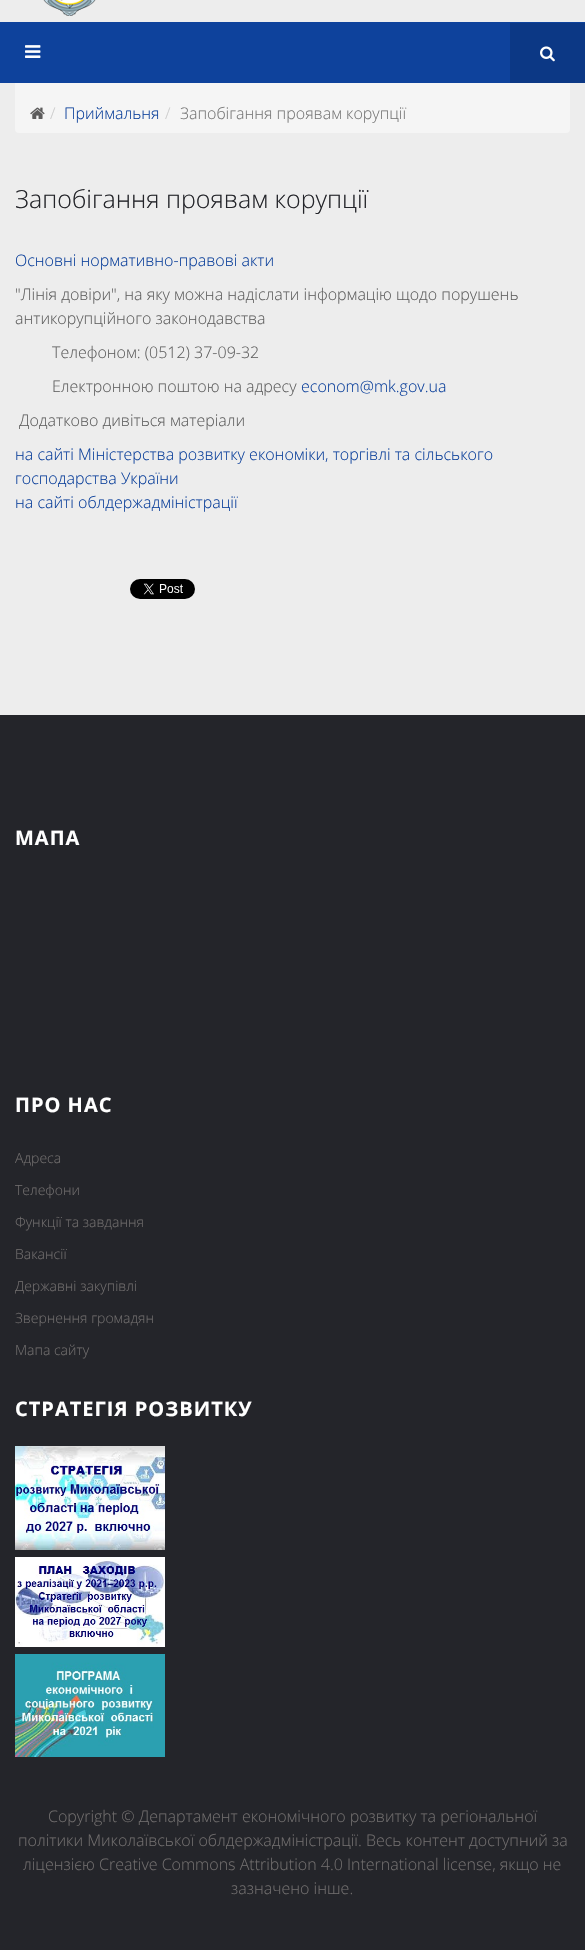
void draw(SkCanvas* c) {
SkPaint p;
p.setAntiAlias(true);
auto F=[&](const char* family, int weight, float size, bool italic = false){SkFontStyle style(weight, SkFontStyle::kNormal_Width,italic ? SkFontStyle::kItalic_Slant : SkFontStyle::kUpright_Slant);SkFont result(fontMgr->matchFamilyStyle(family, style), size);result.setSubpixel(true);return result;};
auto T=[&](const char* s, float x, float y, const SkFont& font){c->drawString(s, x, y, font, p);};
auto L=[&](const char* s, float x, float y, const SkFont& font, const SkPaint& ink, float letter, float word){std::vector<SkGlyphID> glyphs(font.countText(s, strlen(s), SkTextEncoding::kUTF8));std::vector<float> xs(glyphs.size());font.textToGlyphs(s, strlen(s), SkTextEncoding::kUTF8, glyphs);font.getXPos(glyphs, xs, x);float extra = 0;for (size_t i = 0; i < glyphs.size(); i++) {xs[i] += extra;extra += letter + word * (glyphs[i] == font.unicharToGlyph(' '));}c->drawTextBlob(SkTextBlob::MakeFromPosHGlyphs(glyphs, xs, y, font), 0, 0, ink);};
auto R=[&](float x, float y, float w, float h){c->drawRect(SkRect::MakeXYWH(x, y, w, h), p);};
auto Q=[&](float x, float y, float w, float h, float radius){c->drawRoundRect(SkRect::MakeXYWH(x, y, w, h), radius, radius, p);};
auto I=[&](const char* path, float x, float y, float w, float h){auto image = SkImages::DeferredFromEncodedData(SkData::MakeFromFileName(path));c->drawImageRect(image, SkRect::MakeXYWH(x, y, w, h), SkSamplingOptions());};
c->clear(0xffededed);
p.setColor(0xfff5f5f5);
Q(15,31,555,102,4);
p.setColor(0xff0e429c);
R(0,22,585,61);
I("1.png",25,45,16,13);
p.setColor(0xff0c3885);
R(510,23,75,60);
I("2.png",540,46,15,16);
I("3.png",43,0,53,16);
I("4.png",30,107,15,12);
auto f1 = F("Open Sans",300,16);
p.setColor(0xffcccccc);
T("/",50,119,f1);
p.setColor(0xff0e429c);
T("Приймальня",64,119,f1);
p.setColor(0xffcccccc);
T("/",165,119,f1);
p.setColor(0xff777777);
T("Запобігання проявам корупції",180,119,f1);
auto f2 = F("Open Sans",300,25);
p.setColor(0xff24252a);
T("Запобігання проявам корупції",15,208,f2);
p.setColor(0xff0e429c);
T("Основні нормативно-правові акти",15,266,f1);
p.setColor(0xff606060);
T("\"Лінія довіри\", на яку можна надіслати інформацію щодо порушень",15,300,f1);
T("антикорупційного законодавства",15,324,f1);
T("Телефоном: (0512) 37-09-32",52,358,f1);
T("Електронною поштою на адресу",52,392,f1);
p.setColor(0xff0e429c);
T("econom@mk.gov.ua",301,392,f1);
p.setColor(0xff606060);
T("Додатково дивіться матеріали",19,426,f1);
p.setColor(0xff0e429c);
T("на сайті Міністерства розвитку економіки, торгівлі та сільського",15,460,f1);
T("господарства України",15,484,f1);
T("на сайті облдержадміністрації",15,508,f1);
I("5.png",130,579,65,20);
p.setColor(0xff24252a);
R(0,715,585,1235);
auto f3 = F("Open Sans",700,20);
p.setColor(0xffffffff);
L("МАПА",15,845,f3,p,1,0);
L("ПРО НАС",15,1112,f3,p,1,0);
auto f4 = F("Open Sans",300,14);
p.setColor(0xff706d6d);
T("Адреса",15,1163,f4);
T("Телефони",15,1195,f4);
T("Функції та завдання",15,1227,f4);
T("Вакансії",15,1259,f4);
T("Державні закупівлі",15,1291,f4);
T("Звернення громадян",15,1323,f4);
T("Мапа сайту",15,1355,f4);
p.setColor(0xffffffff);
L("СТРАТЕГІЯ РОЗВИТКУ",15,1416,f3,p,1,0);
I("6.png",15,1446,150,104);
I("7.png",15,1557,150,90);
I("8.png",15,1654,150,103);
p.setColor(0xff706d6d);
T("Copyright © Департамент економічного розвитку та регіональної",48,1822,f1);
T("політики Миколаївської облдержадміністрації. Весь контент доступний за",18,1846,f1);
T("ліцензією Creative Commons Attribution 4.0 International license, якщо не",23,1870,f1);
T("зазначено інше.",231,1894,f1);
}
